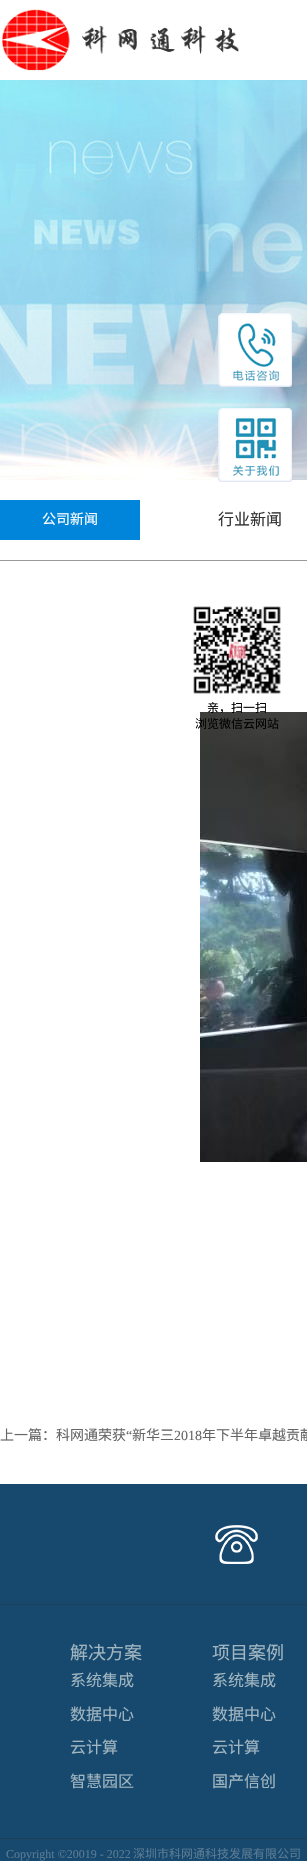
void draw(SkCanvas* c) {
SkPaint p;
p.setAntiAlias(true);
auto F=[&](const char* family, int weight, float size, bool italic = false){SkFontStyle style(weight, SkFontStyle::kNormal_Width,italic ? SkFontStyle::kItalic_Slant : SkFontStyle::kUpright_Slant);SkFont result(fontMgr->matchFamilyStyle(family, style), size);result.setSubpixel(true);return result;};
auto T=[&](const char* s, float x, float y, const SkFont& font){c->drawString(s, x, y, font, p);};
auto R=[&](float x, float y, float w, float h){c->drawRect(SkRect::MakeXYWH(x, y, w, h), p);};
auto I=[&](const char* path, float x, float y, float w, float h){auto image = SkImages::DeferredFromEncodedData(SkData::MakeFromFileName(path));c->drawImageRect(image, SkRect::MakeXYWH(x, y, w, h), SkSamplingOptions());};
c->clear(0xffffffff);
I("1.png",2,9,237,62);
I("4.png",0,80,307,400);
I("2.png",218,313,74,74);
I("3.png",218,408,74,74);
p.setColor(0xff999999);
R(0,560,307,1);
p.setColor(0xff0085db);
R(0,500,140,40);
auto f1 = F("Noto Sans CJK SC",400,14);
p.setColor(0xffffffff);
T("公司新闻",42,524,f1);
auto f2 = F("Noto Sans CJK SC",400,16);
p.setColor(0xff333333);
T("行业新闻",218,525,f2);
I("5.png",200,712,107,450);
I("6.png",193,606,88,88);
auto f3 = F("Noto Sans CJK SC",400,12);
p.setColor(0xff000000);
T("亲，扫一扫",207,712,f3);
T("浏览微信云网站",195,728,f3);
p.setColor(0xff666666);
T("上一篇：科网通荣获",0,1440,f1);
auto f4 = F("Liberation Serif",400,14);
T("“",126,1440,f4);
T("新华三",132,1440,f1);
T("2018",174,1440,f4);
T("年下半年卓越贡献",202,1440,f1);
p.setColor(0xff17496f);
R(0,1484,307,377);
p.setColor(0xff1d3e57);
R(0,1604,307,1);
I("7.png",215,1525,43,39);
R(0,1838,307,1);
auto f5 = F("Noto Sans CJK SC",400,18);
p.setColor(0xffa1b6c0);
T("解决方案",70,1659,f5);
T("系统集成",70,1686,f2);
T("数据中心",70,1720,f2);
T("云计算",70,1753,f2);
T("智慧园区",70,1787,f2);
T("项目案例",212,1659,f5);
T("系统集成",212,1686,f2);
T("数据中心",212,1720,f2);
T("云计算",212,1753,f2);
T("国产信创",212,1787,f2);
auto f6 = F("Liberation Serif",400,12);
p.setColor(0xff5a7a92);
T("Copyright ©20019 - 2022",6,1858,f6);
T("深圳市科网通科技发展有限公司",133,1858,f3);
}
